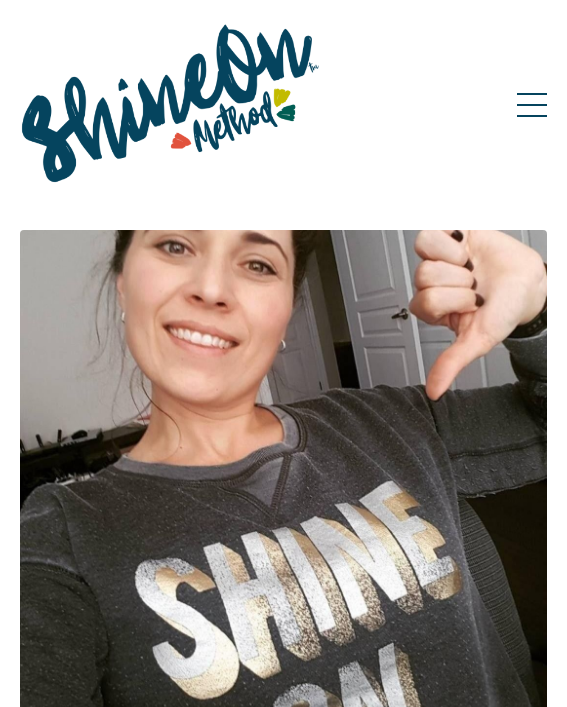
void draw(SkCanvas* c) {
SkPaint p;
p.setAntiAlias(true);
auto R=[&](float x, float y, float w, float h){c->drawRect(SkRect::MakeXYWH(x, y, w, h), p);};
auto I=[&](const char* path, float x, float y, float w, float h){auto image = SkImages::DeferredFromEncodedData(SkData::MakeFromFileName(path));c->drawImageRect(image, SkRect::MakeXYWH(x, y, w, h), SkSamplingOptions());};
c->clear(0xffffffff);
I("1.png",21,24,298,159);
p.setColor(0xff05445e);
R(517,93,30,2);
R(517,104,30,2);
R(517,115,30,2);
I("2.png",20,230,527,477);
}
